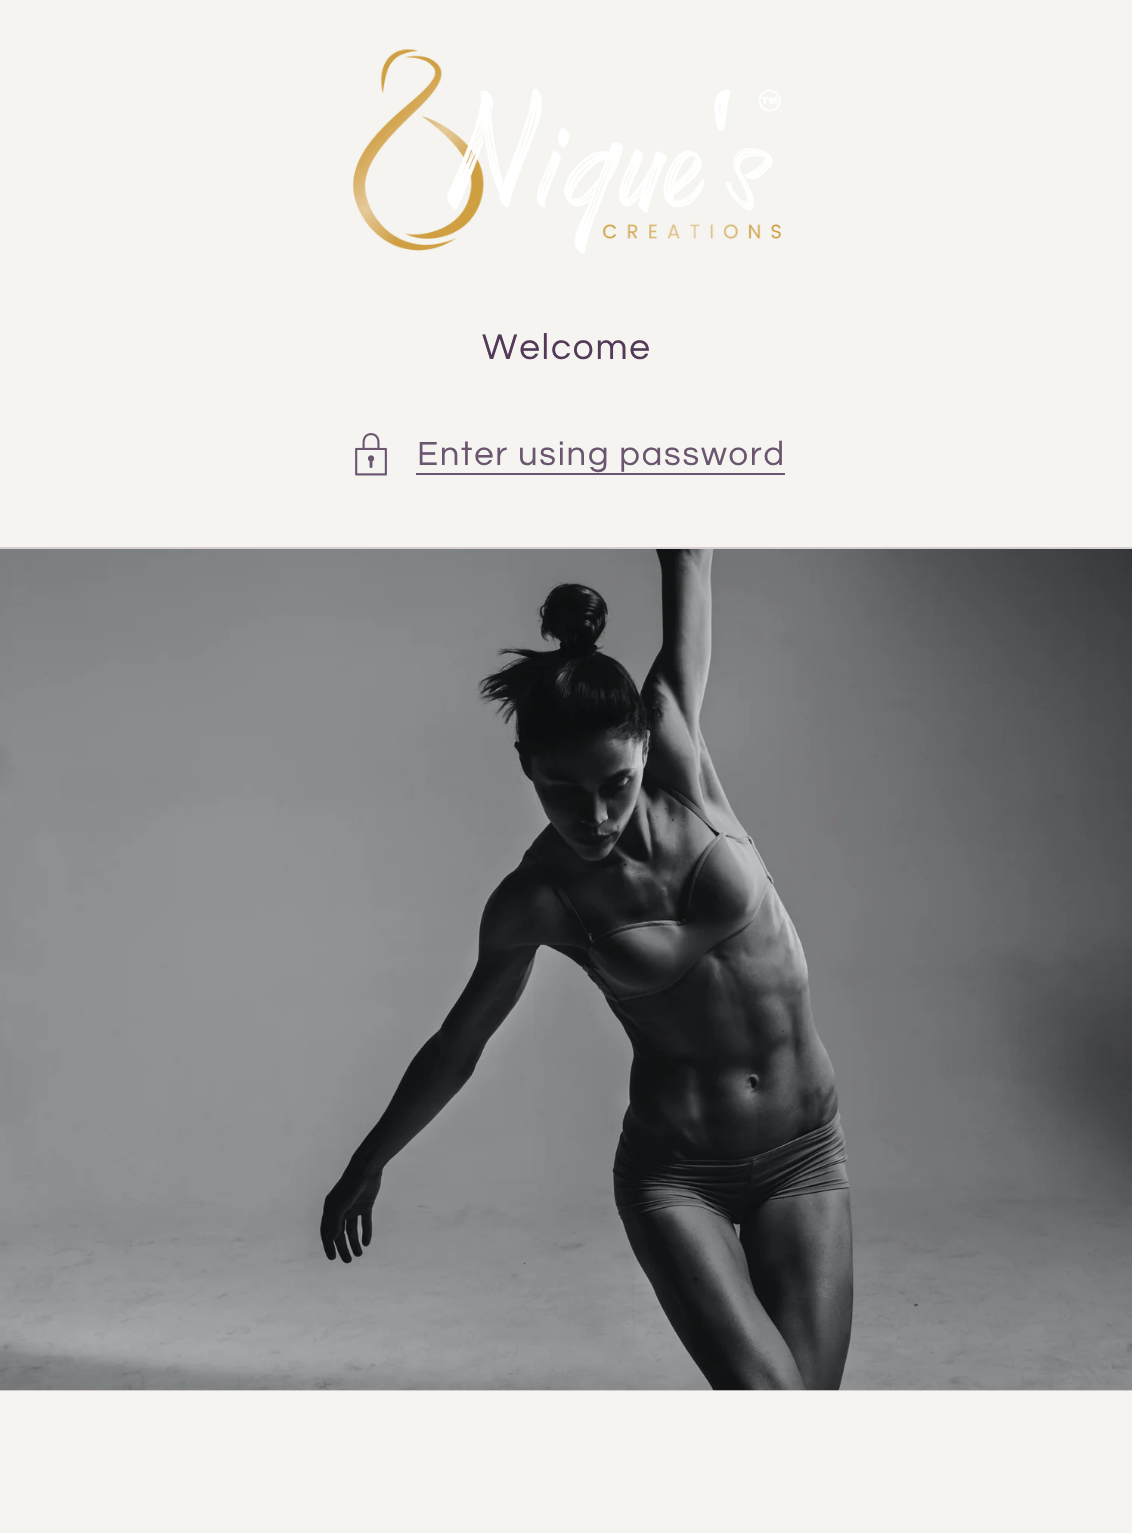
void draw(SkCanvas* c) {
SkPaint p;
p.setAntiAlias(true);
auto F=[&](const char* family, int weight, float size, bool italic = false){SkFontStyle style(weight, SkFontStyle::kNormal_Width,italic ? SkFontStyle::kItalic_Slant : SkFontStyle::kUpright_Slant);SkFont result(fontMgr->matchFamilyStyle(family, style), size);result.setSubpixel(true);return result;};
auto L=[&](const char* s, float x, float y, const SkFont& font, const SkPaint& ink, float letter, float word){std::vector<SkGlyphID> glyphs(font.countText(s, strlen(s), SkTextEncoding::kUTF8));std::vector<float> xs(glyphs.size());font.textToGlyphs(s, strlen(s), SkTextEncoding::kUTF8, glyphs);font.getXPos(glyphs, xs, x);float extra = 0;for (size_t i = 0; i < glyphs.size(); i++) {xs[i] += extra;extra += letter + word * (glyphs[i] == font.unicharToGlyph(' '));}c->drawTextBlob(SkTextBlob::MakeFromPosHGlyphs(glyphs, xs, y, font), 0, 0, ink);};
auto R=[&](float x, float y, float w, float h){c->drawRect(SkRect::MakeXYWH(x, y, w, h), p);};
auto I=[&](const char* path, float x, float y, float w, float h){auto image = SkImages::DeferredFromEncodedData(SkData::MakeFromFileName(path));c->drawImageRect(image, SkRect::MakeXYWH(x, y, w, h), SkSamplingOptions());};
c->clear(0xfff5f4f0);
I("1.png",353,49,428,205);
auto f1 = F("Questrial",400,37);
p.setColor(0xff533a59);
L("Welcome",482,359,f1,p,1.75,0);
I("2.png",355,433,32,43);
auto f2 = F("Questrial",400,34.6);
p.setColor(0xff6b5670);
L("Enter using password",417,465,f2,p,1.75,0);
R(416,473,369,2);
p.setColor(0xffd5cfd2);
R(0,547,1132,2);
p.setColor(0xffe3dfe1);
R(0,1390,1132,1);
I("3.png",0,549,1132,842);
}
